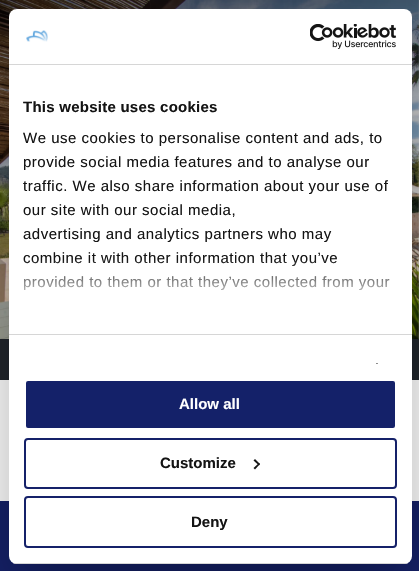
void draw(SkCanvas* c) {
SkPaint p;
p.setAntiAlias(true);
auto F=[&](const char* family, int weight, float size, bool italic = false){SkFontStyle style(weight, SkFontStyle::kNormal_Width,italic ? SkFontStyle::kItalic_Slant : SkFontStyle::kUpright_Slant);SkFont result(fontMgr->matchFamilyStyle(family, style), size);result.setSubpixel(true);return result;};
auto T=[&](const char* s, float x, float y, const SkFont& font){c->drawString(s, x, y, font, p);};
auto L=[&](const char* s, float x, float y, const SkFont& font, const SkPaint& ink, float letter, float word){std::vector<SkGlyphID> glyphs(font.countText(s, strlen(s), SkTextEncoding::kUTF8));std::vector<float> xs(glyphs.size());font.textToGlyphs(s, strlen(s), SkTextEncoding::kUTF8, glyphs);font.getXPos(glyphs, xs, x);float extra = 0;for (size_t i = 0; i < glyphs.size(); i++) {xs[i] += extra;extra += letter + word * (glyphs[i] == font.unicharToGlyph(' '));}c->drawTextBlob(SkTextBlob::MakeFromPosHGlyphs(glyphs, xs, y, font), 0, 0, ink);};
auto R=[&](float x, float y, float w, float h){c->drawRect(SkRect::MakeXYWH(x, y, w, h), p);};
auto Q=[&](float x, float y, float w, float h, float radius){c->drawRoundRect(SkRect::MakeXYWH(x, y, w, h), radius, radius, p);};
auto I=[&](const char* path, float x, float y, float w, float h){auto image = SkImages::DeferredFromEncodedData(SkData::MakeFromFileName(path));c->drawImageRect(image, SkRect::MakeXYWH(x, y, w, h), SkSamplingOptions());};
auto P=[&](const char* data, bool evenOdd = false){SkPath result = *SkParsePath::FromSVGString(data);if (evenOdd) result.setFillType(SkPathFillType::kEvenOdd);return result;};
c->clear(0xffffffff);
I("1.png",0,0,419,339);
{
const SkColor colors[] = {0x80000000,0x33000000,0x1a000000};
const float stops[] = {0,.28,1};
const SkPoint ends[] = {{209,0}, {210,380}};
p.setShader(SkGradientShader::MakeLinear(ends, colors, stops, 3, SkTileMode::kClamp));
p.setAlpha(255);
}
R(0,0,419,339);
p.setShader(nullptr);
p.setColor(0xff21262c);
R(0,339,419,41);
p.setColor(0xff152169);
R(0,501,419,70);
p.setColor(0x4d000000);
p.setMaskFilter(SkMaskFilter::MakeBlur(kNormal_SkBlurStyle, 34));
c->drawRoundRect(SkRect::MakeXYWH(9,41,403,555),8,8,p);
p.setMaskFilter(nullptr);
p.setColor(0xffffffff);
Q(9,9,403,555,8);
p.setColor(0xffd6d6d6);
R(9,64,403,1);
I("2.png",26,30,22,12);
I("3.png",310,24,87,25);
R(9,334,403,1);
auto f1 = F("Liberation Sans",700,15);
p.setColor(0xff141414);
L("This website uses cookies",23,112,f1,p,.25,0);
auto f2 = F("Liberation Sans",400,15);
L("We use cookies to personalise content and ads, to",23,143,f2,p,.5,0);
L("provide social media features and to analyse our",23,167,f2,p,.5,0);
L("traffic. We also share information about your use of",23,191,f2,p,.5,0);
L("our site with our social media,",23,215,f2,p,.5,0);
L("advertising and analytics partners who may",23,239,f2,p,.5,0);
L("combine it with other information that you’ve",23,263,f2,p,.5,0);
L("provided to them or that they’ve collected from your",23,287,f2,p,.5,0);
{
const SkColor colors[] = {0xffffffff,0xccffffff,0x00ffffff};
const float stops[] = {0,.5,1};
const SkPoint ends[] = {{204,334}, {204,259}};
p.setShader(SkGradientShader::MakeLinear(ends, colors, stops, 3, SkTileMode::kClamp));
p.setAlpha(255);
}
R(24,260,366,31);
c->save();
c->clipRect(SkRect::MakeXYWH(9,65,403,299));
p.setShader(nullptr);
p.setColor(0xff141414);
c->drawPath(P("M377 363l5.5 6l-1 1.5l-6-6z"),p);
c->restore();
c->save();
c->clipPath(P("M17 9h387c4.5 0 8 3.5 8 8v539c0 4.5-3.5 8-8 8h-387c-4.5 0-8-3.5-8-8v-539c0-4.5 3.5-8 8-8z"),true);
p.setColor(0xffd6d6d6);
R(9,563,403,1);
c->restore();
p.setColor(0xff142169);
c->drawRoundRect(SkRect::MakeXYWH(25,380,371,49),3,3,p);
p.setStroke(true);
p.setStrokeWidth(2);
p.setColor(0xffffffff);
c->drawRoundRect(SkRect::MakeXYWH(25,380,371,49),3,3,p);
p.setStroke(false);
T("Allow all",179,409,f1);
p.setStroke(true);
p.setColor(0xff152169);
c->drawRoundRect(SkRect::MakeXYWH(25,439,371,49),3,3,p);
p.setStroke(false);
p.setColor(0xff141414);
T("Customize",160,468,f1);
c->drawPath(P("M255 459l5 5l-1 1.5l-5.5-5z"),p);
c->drawPath(P("M259 463l1 1l-5 5.5l-1.5-1.5z"),p);
p.setStroke(true);
p.setColor(0xff152169);
c->drawRoundRect(SkRect::MakeXYWH(25,497,371,50),3,3,p);
p.setStroke(false);
p.setColor(0xff141414);
T("Deny",191,527,f1);
}
